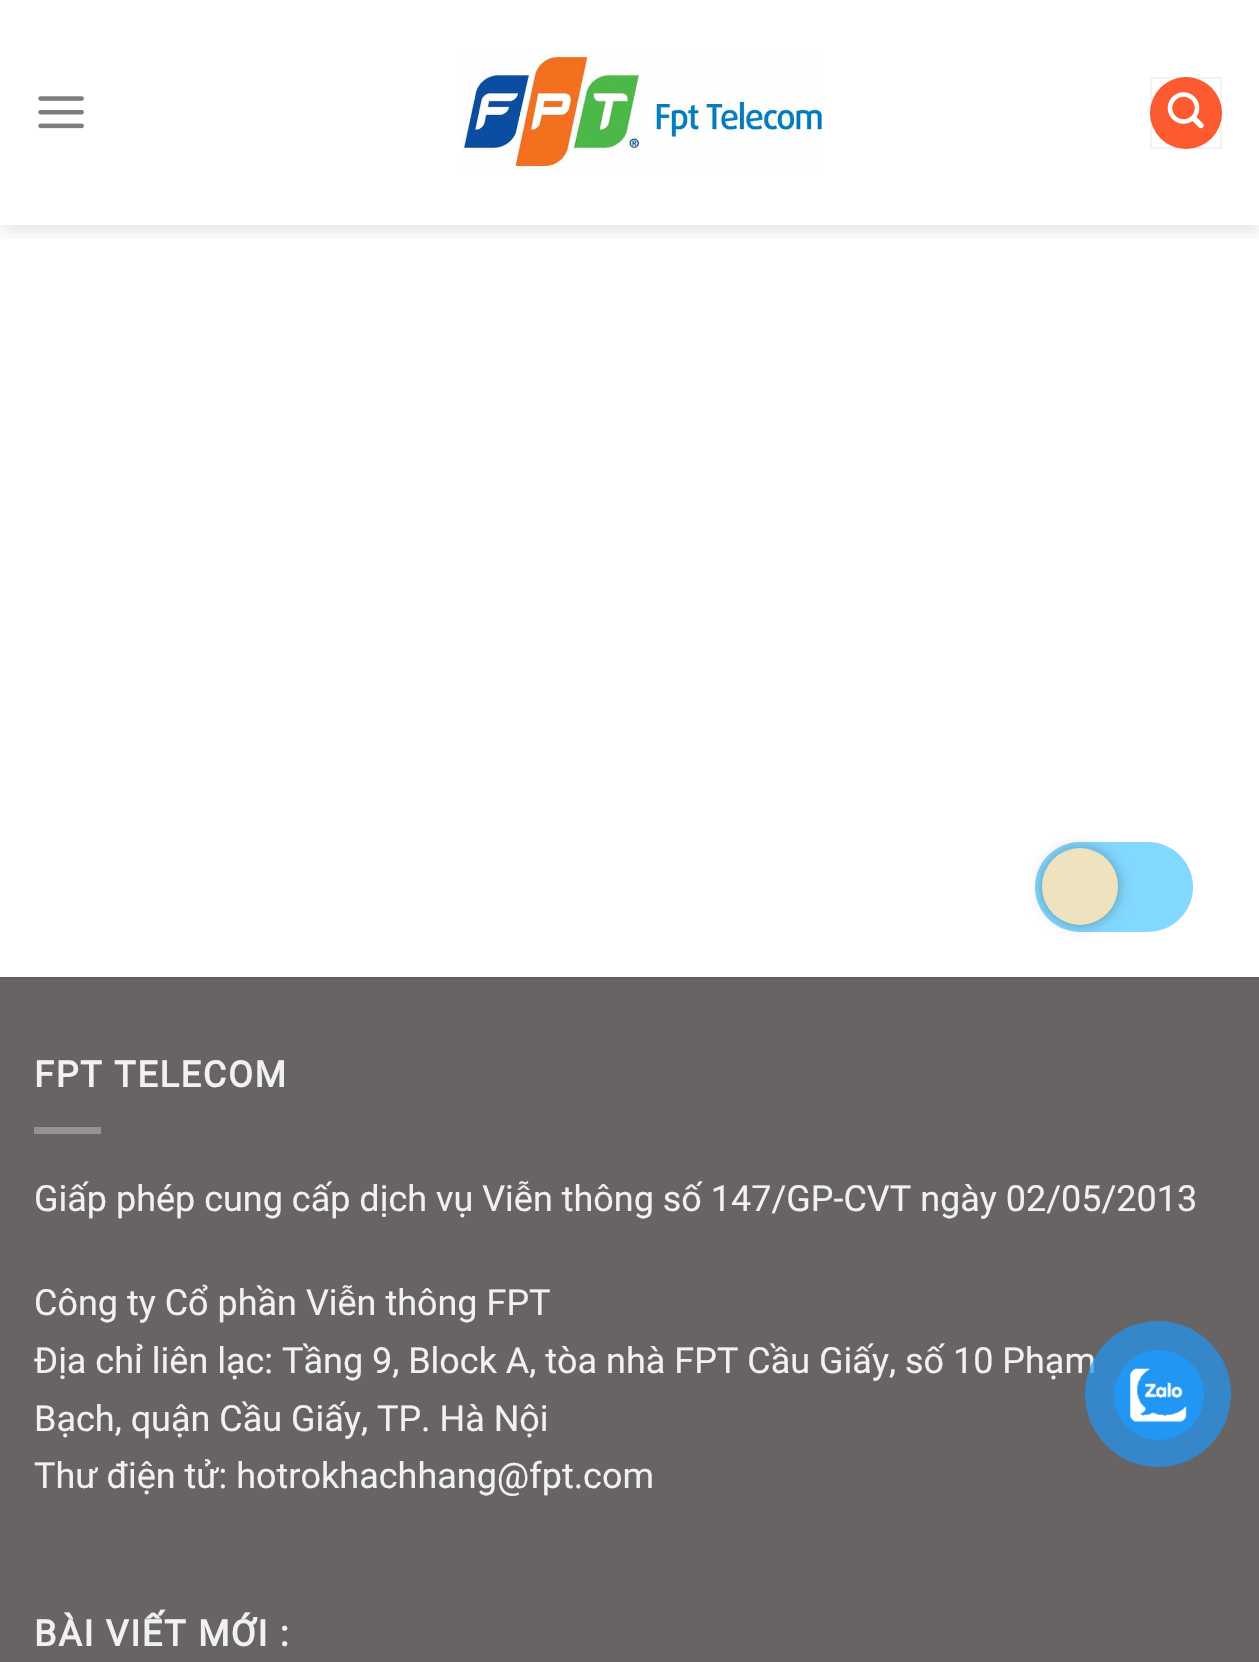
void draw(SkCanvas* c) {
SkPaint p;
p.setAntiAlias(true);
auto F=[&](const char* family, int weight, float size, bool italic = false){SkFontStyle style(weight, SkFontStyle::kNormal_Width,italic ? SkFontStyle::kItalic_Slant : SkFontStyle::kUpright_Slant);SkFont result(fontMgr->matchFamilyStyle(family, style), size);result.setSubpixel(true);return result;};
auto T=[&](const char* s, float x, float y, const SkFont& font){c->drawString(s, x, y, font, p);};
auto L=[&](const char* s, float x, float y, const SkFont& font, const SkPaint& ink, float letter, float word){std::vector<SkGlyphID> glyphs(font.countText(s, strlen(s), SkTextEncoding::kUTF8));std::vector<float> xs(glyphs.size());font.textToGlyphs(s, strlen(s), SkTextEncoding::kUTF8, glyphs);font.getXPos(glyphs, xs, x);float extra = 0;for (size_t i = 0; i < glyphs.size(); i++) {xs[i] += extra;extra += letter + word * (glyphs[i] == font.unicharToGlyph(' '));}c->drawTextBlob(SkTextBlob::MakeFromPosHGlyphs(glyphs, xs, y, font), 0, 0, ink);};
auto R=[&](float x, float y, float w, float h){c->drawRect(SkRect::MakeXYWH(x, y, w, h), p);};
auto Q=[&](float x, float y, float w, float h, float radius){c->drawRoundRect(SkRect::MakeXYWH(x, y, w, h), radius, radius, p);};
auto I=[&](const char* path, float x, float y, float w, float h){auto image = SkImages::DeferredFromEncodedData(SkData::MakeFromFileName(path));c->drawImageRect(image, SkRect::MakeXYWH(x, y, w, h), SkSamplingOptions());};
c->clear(0xffffffff);
p.setColor(0xff83d8ff);
Q(1035,842,158,90,45);
p.setColor(0x4d000000);
p.setMaskFilter(SkMaskFilter::MakeBlur(kNormal_SkBlurStyle, 7));
c->drawRoundRect(SkRect::MakeXYWH(1042,848,76,77),38,38,p);
p.setMaskFilter(nullptr);
p.setColor(0xffefe2bf);
Q(1042,848,76,77,38);
c->save();
c->clipRect(SkRect::MakeXYWH(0,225,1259,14));
p.setColor(0x26000000);
p.setMaskFilter(SkMaskFilter::MakeBlur(kNormal_SkBlurStyle, 11));
c->drawRect(SkRect::MakeXYWH(2,2,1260,225),p);
p.setMaskFilter(nullptr);
c->restore();
I("1.png",38,96,46,33);
I("2.png",462,54,362,117);
p.setColor(0xfffc5b31);
c->drawCircle(1186,113,36,p);
p.setStroke(true);
p.setStrokeWidth(2);
p.setColor(0x0d000000);
c->drawRect(SkRect::MakeXYWH(1151,78,70,70),p);
I("3.png",1167,92,37,37);
p.setStroke(false);
p.setColor(0xff676463);
R(0,979,1259,683);
p.setColor(0xff625f5e);
R(0,977,1259,2);
auto f1 = F("Roboto",700,36);
p.setColor(0xfff1f1f1);
L("FPT TELECOM",34,1087,f1,p,1.75,0);
p.setColor(0xff959392);
R(34,1127,67,7);
auto f2 = F("Roboto",400,36);
p.setColor(0xfff1f1f1);
T("Giấp phép cung cấp dịch vụ Viễn thông số 147/GP-CVT ngày 02/05/2013",34,1211,f2);
T("Công ty Cổ phần Viễn thông FPT",34,1315,f2);
T("Địa chỉ liên lạc: Tầng 9, Block A, tòa nhà FPT Cầu Giấy, số 10 Phạm",34,1373,f2);
T("Bạch, quận Cầu Giấy, TP. Hà Nội",34,1431,f2);
T("Thư điện tử: hotrokhachhang@fpt.com",34,1488,f2);
L("BÀI VIẾT MỚI :",34,1646,f1,p,1.75,0);
p.setColor(0xb32196f3);
c->drawCircle(1158,1394,73,p);
p.setColor(0xff2196f3);
c->drawCircle(1159,1395,45,p);
I("4.png",1130,1368,57,54);
}
